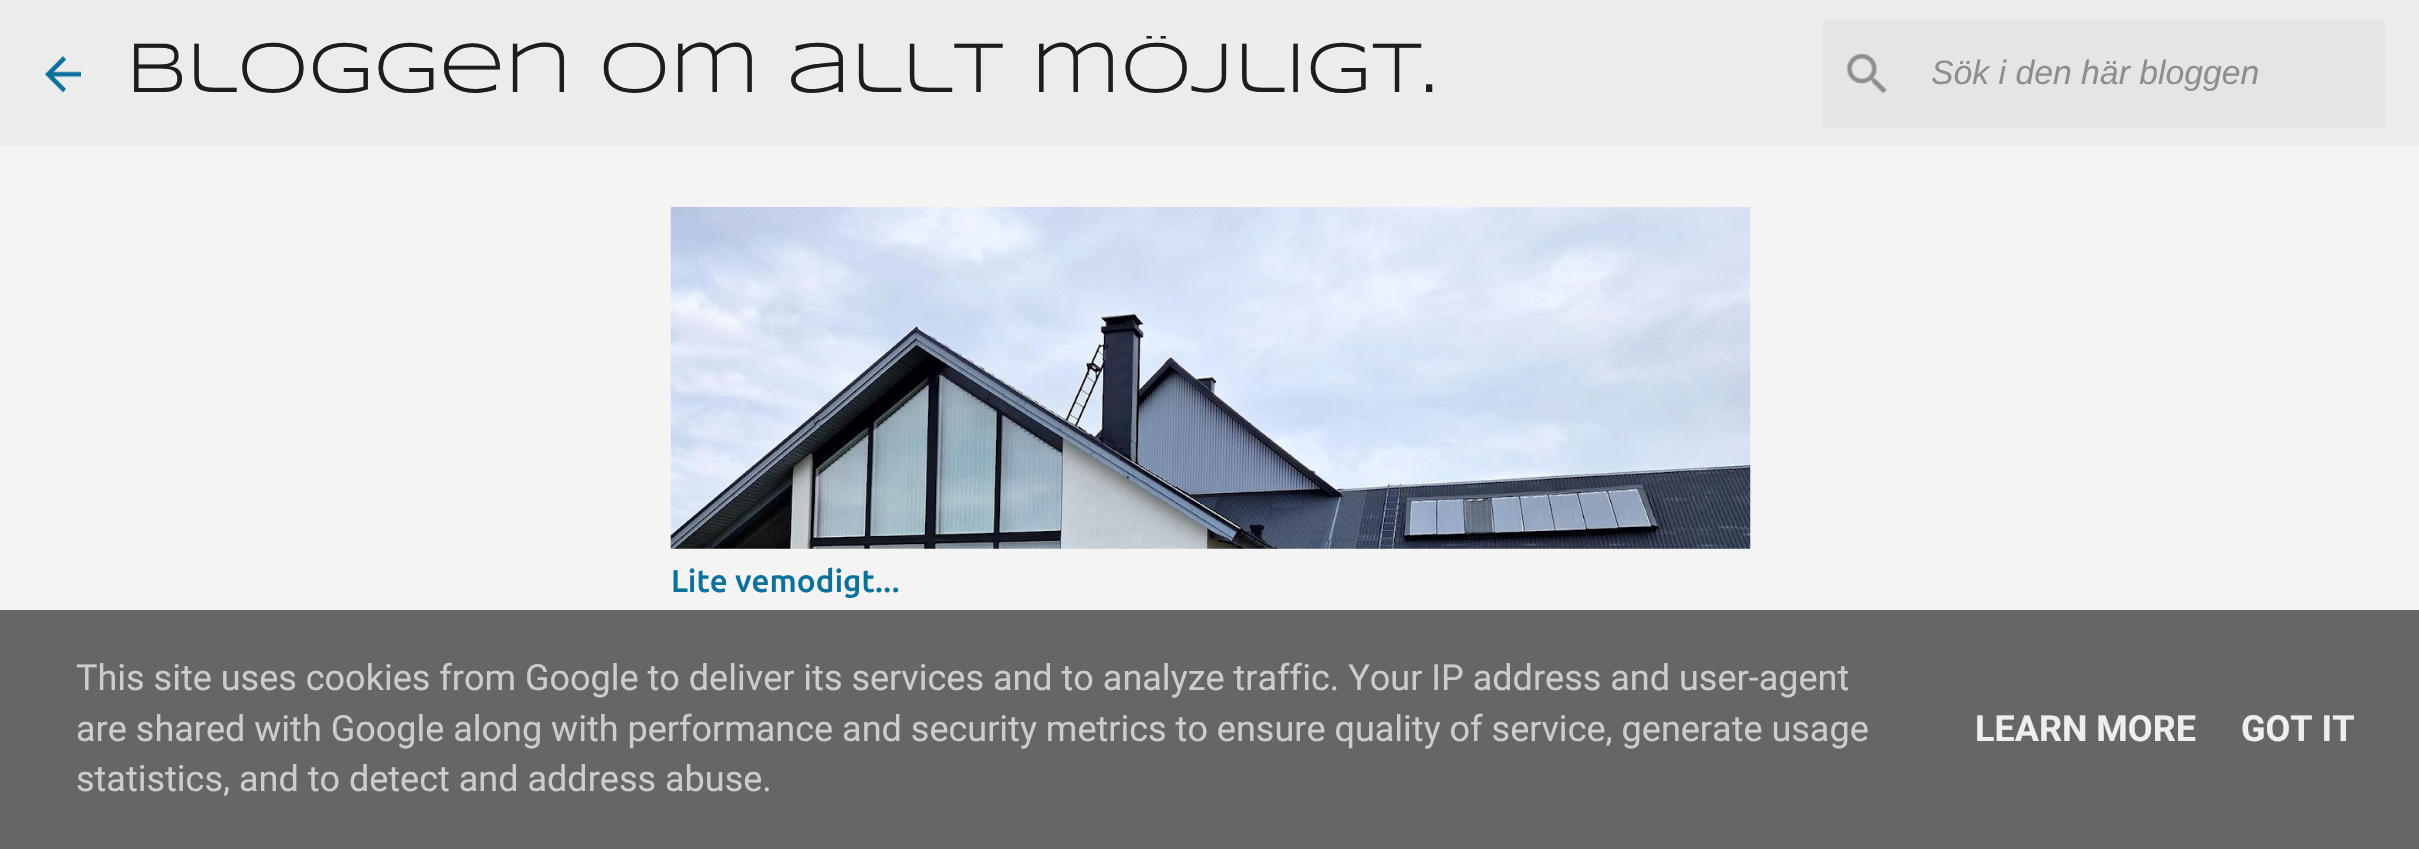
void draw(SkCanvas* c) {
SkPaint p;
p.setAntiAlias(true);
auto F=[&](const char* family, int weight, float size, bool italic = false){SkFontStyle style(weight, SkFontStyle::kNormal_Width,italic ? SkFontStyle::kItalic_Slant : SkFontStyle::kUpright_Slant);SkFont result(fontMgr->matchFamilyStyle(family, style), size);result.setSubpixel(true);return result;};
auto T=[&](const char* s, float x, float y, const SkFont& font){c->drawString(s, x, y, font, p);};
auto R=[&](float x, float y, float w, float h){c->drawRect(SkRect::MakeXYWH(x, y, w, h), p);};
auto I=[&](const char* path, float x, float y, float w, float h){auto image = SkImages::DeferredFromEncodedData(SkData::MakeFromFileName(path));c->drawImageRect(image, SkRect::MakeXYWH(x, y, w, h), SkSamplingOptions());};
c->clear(0xfff4f4f4);
p.setColor(0xffececec);
R(0,0,2419,146);
I("1.png",45,56,36,37);
c->save();
c->clipRect(SkRect::MakeXYWH(126,36,1310,74));
auto f1 = F("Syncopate",400,72);
p.setColor(0xff1d1d1d);
T("Bloggen om allt möjligt.",126,92,f1);
c->restore();
p.setColor(0xffe5e5e5);
R(1823,20,562,108);
I("2.png",1846,53,41,41);
auto f2 = F("Liberation Sans",400,33.75,true);
p.setColor(0xff8e8e8e);
T("Sök i den här bloggen",1931,84,f2);
I("3.png",670,207,1081,342);
auto f3 = F("Ubuntu",500,31.5);
p.setColor(0xff0a719c);
T("Lite vemodigt...",671,592,f3);
p.setColor(0xff666666);
R(0,610,2419,239);
auto f4 = F("Roboto",400,36);
p.setColor(0xffcccccc);
T("This site uses cookies from Google to deliver its services and to analyze traffic. Your IP address and user-agent",76,690,f4);
T("are shared with Google along with performance and security metrics to ensure quality of service, generate usage",76,741,f4);
T("statistics, and to detect and address abuse.",76,791,f4);
auto f5 = F("Roboto",700,36);
p.setColor(0xffeeeeee);
T("LEARN MORE",1975,741,f5);
T("GOT IT",2241,741,f5);
}
